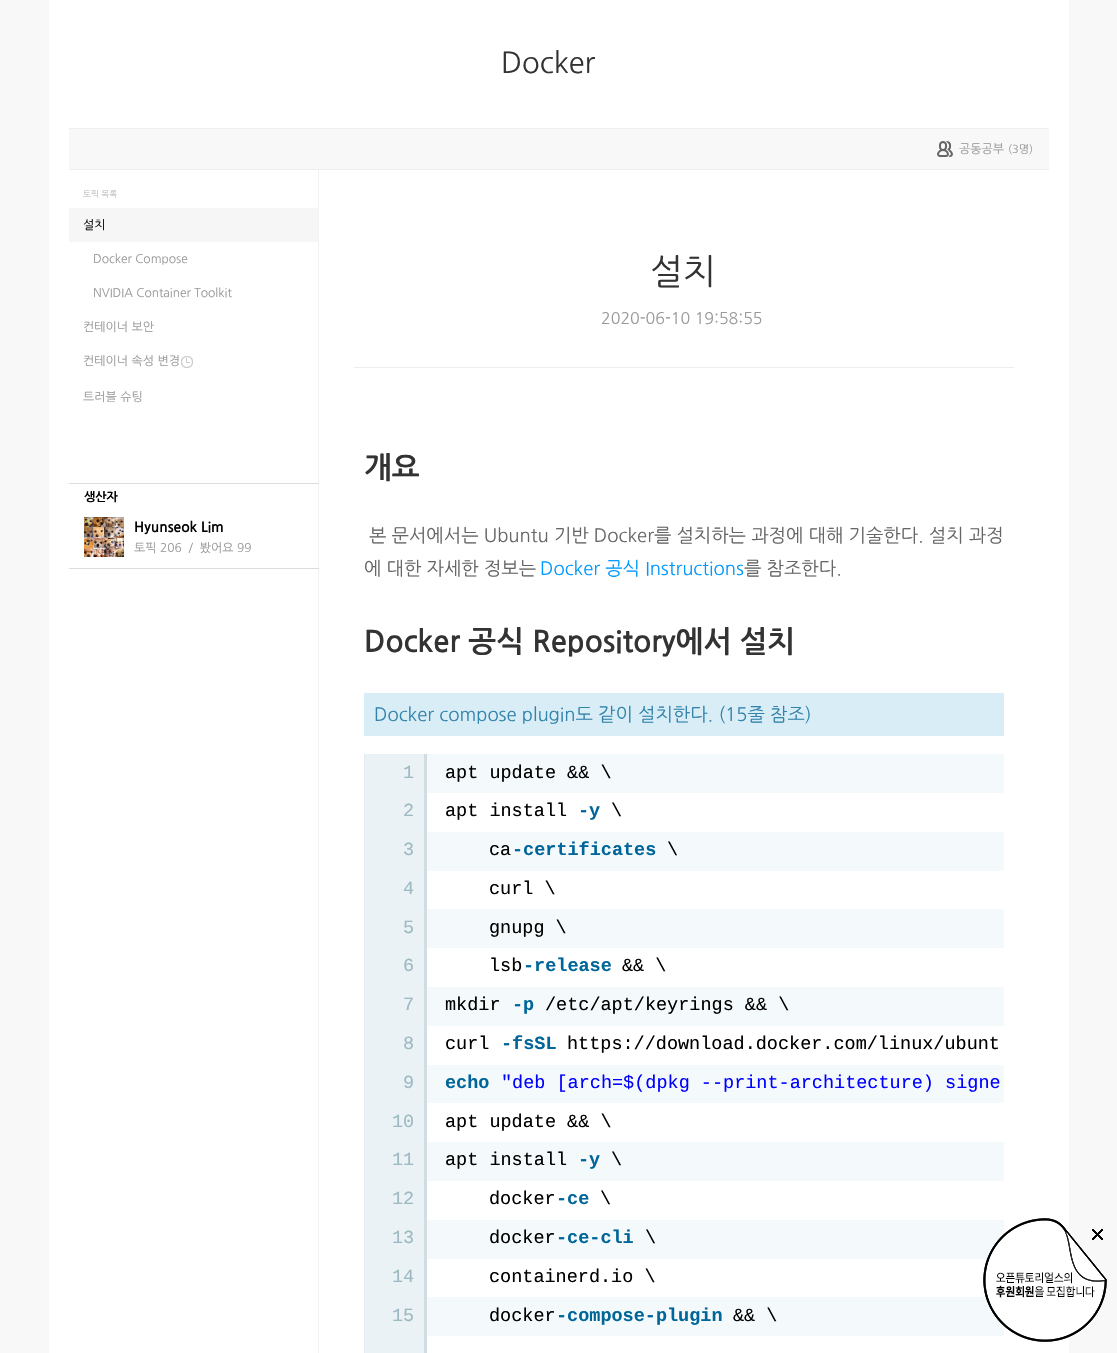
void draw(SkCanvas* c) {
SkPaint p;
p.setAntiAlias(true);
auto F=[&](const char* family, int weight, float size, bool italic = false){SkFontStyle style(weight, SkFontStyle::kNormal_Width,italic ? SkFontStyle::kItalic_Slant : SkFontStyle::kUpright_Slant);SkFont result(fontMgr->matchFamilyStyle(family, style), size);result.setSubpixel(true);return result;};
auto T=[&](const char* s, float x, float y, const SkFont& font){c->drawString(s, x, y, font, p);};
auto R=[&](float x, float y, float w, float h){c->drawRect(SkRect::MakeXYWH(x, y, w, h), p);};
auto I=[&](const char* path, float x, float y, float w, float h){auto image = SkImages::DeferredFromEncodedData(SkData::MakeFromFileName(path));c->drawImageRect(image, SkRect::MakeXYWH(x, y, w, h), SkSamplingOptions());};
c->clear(0xfff8f8f8);
p.setColor(0xffffffff);
R(49,0,1020,1353);
auto f1 = F("NanumGothic",400,29);
p.setColor(0xff333333);
T("Docker",501,73,f1);
p.setColor(0xfff8f8f8);
R(69,129,980,40);
p.setColor(0xffeeeeee);
R(69,128,980,1);
R(69,169,980,1);
I("1.png",937,141,16,16);
auto f2 = F("NanumGothic",400,12);
p.setColor(0xff999999);
T("공동공부",959,153,f2);
auto f3 = F("NanumGothic",400,11);
T("(3명)",1008,153,f3);
p.setColor(0xfff2f2f2);
R(318,170,1,1183);
auto f4 = F("NanumGothic",400,8.5);
p.setColor(0xffbbbbbb);
T("토픽 목록",83,197,f4);
p.setColor(0xfff6f6f6);
R(69,208,249,34);
p.setColor(0xff000000);
T("설치",83,229,f2);
p.setColor(0xff999999);
T("Docker Compose",93,263,f2);
T("NVIDIA Container Toolkit",93,297,f2);
T("컨테이너 보안",83,331,f2);
T("컨테이너 속성 변경",83,365,f2);
I("2.png",181,356,12,12);
T("트러블 슈팅",83,401,f2);
p.setColor(0xffdddddd);
R(69,483,250,1);
R(69,568,250,1);
auto f5 = F("NanumGothic",700,12);
p.setColor(0xff000000);
T("생산자",84,501,f5);
I("3.png",84,517,40,40);
auto f6 = F("NanumGothic",700,14);
T("Hyunseok Lim",134,532,f6);
p.setColor(0xff999999);
T("토픽 206  /  봤어요 99",134,552,f2);
p.setColor(0xffeeeeee);
R(354,367,660,1);
auto f7 = F("NanumGothic",400,35);
p.setColor(0xff333333);
T("설치",650,284,f7);
auto f8 = F("NanumGothic",400,16);
p.setColor(0xff999999);
T("2020-06-10 19:58:55",601,324,f8);
auto f9 = F("NanumGothic",700,29.6);
p.setColor(0xff333333);
T("개요",364,478,f9);
auto f10 = F("NanumGothic",400,18.5);
p.setColor(0xff666666);
T("본 문서에서는 Ubuntu 기반 Docker를 설치하는 과정에 대해 기술한다. 설치 과정",369,542,f10);
T("에 대한 자세한 정보는",364,575,f10);
p.setColor(0xff0099ff);
T("Docker 공식 Instructions",540,575,f10);
p.setColor(0xff666666);
T("를 참조한다.",744,575,f10);
p.setColor(0xff333333);
T("Docker 공식 Repository에서 설치",364,652,f9);
p.setColor(0xffd9edf7);
R(364,693,640,43);
p.setColor(0xff3383aa);
T("Docker compose plugin도 같이 설치한다. (15줄 참조)",374,721,f10);
p.setColor(0xffeaf2f5);
R(365,754,59,599);
p.setColor(0xffd1dde1);
R(424,754,3,599);
p.setColor(0xffe5ecef);
R(364,754,1,599);
auto f11 = F("Liberation Mono",400,18.5);
p.setColor(0xff9db9c2);
T("1",403,778,f11);
T("2",403,816,f11);
T("3",403,855,f11);
T("4",403,894,f11);
T("5",403,933,f11);
T("6",403,971,f11);
T("7",403,1010,f11);
T("8",403,1049,f11);
T("9",403,1088,f11);
T("10",392,1127,f11);
T("11",392,1165,f11);
T("12",392,1204,f11);
T("13",392,1243,f11);
T("14",392,1282,f11);
T("15",392,1321,f11);
p.setColor(0xfff4fafc);
R(427,754,577,39);
p.setColor(0xff000000);
T("apt update && \\",445,778,f11);
T("apt install",445,816,f11);
auto f12 = F("Liberation Mono",700,18.5);
p.setColor(0xff006699);
T("-y",578,816,f12);
p.setColor(0xff000000);
T("\\",611,816,f11);
p.setColor(0xfff4fafc);
R(427,832,577,39);
p.setColor(0xff000000);
T("ca",489,855,f11);
p.setColor(0xff006699);
T("-certificates",512,855,f12);
p.setColor(0xff000000);
T("\\",667,855,f11);
T("curl \\",489,894,f11);
p.setColor(0xfff4fafc);
R(427,909,577,39);
p.setColor(0xff000000);
T("gnupg \\",489,933,f11);
T("lsb",489,971,f11);
p.setColor(0xff006699);
T("-release",523,971,f12);
p.setColor(0xff000000);
T("&& \\",622,971,f11);
p.setColor(0xfff4fafc);
R(427,987,577,39);
p.setColor(0xff000000);
T("mkdir",445,1010,f11);
p.setColor(0xff006699);
T("-p",512,1010,f12);
p.setColor(0xff000000);
T("/etc/apt/keyrings && \\",545,1010,f11);
T("curl",445,1049,f11);
p.setColor(0xff006699);
T("-fsSL",501,1049,f12);
p.setColor(0xff000000);
T("https://download.docker.com/linux/ubunt",567,1049,f11);
p.setColor(0xfff4fafc);
R(427,1065,577,38);
p.setColor(0xff006699);
T("echo",445,1088,f12);
p.setColor(0xff0000ff);
T("\"deb [arch=$(dpkg --print-architecture) signe",501,1088,f11);
p.setColor(0xff000000);
T("apt update && \\",445,1127,f11);
p.setColor(0xfff4fafc);
R(427,1142,577,39);
p.setColor(0xff000000);
T("apt install",445,1165,f11);
p.setColor(0xff006699);
T("-y",578,1165,f12);
p.setColor(0xff000000);
T("\\",611,1165,f11);
T("docker",489,1204,f11);
p.setColor(0xff006699);
T("-ce",556,1204,f12);
p.setColor(0xff000000);
T("\\",600,1204,f11);
p.setColor(0xfff4fafc);
R(427,1220,577,39);
p.setColor(0xff000000);
T("docker",489,1243,f11);
p.setColor(0xff006699);
T("-ce-cli",556,1243,f12);
p.setColor(0xff000000);
T("\\",645,1243,f11);
T("containerd.io \\",489,1282,f11);
p.setColor(0xfff4fafc);
R(427,1297,577,39);
p.setColor(0xff000000);
T("docker",489,1321,f11);
p.setColor(0xff006699);
T("-compose-plugin",556,1321,f12);
p.setColor(0xff000000);
T("&& \\",733,1321,f11);
I("4.png",983,1218,124,124);
I("5.png",1092,1229,11,11);
}
